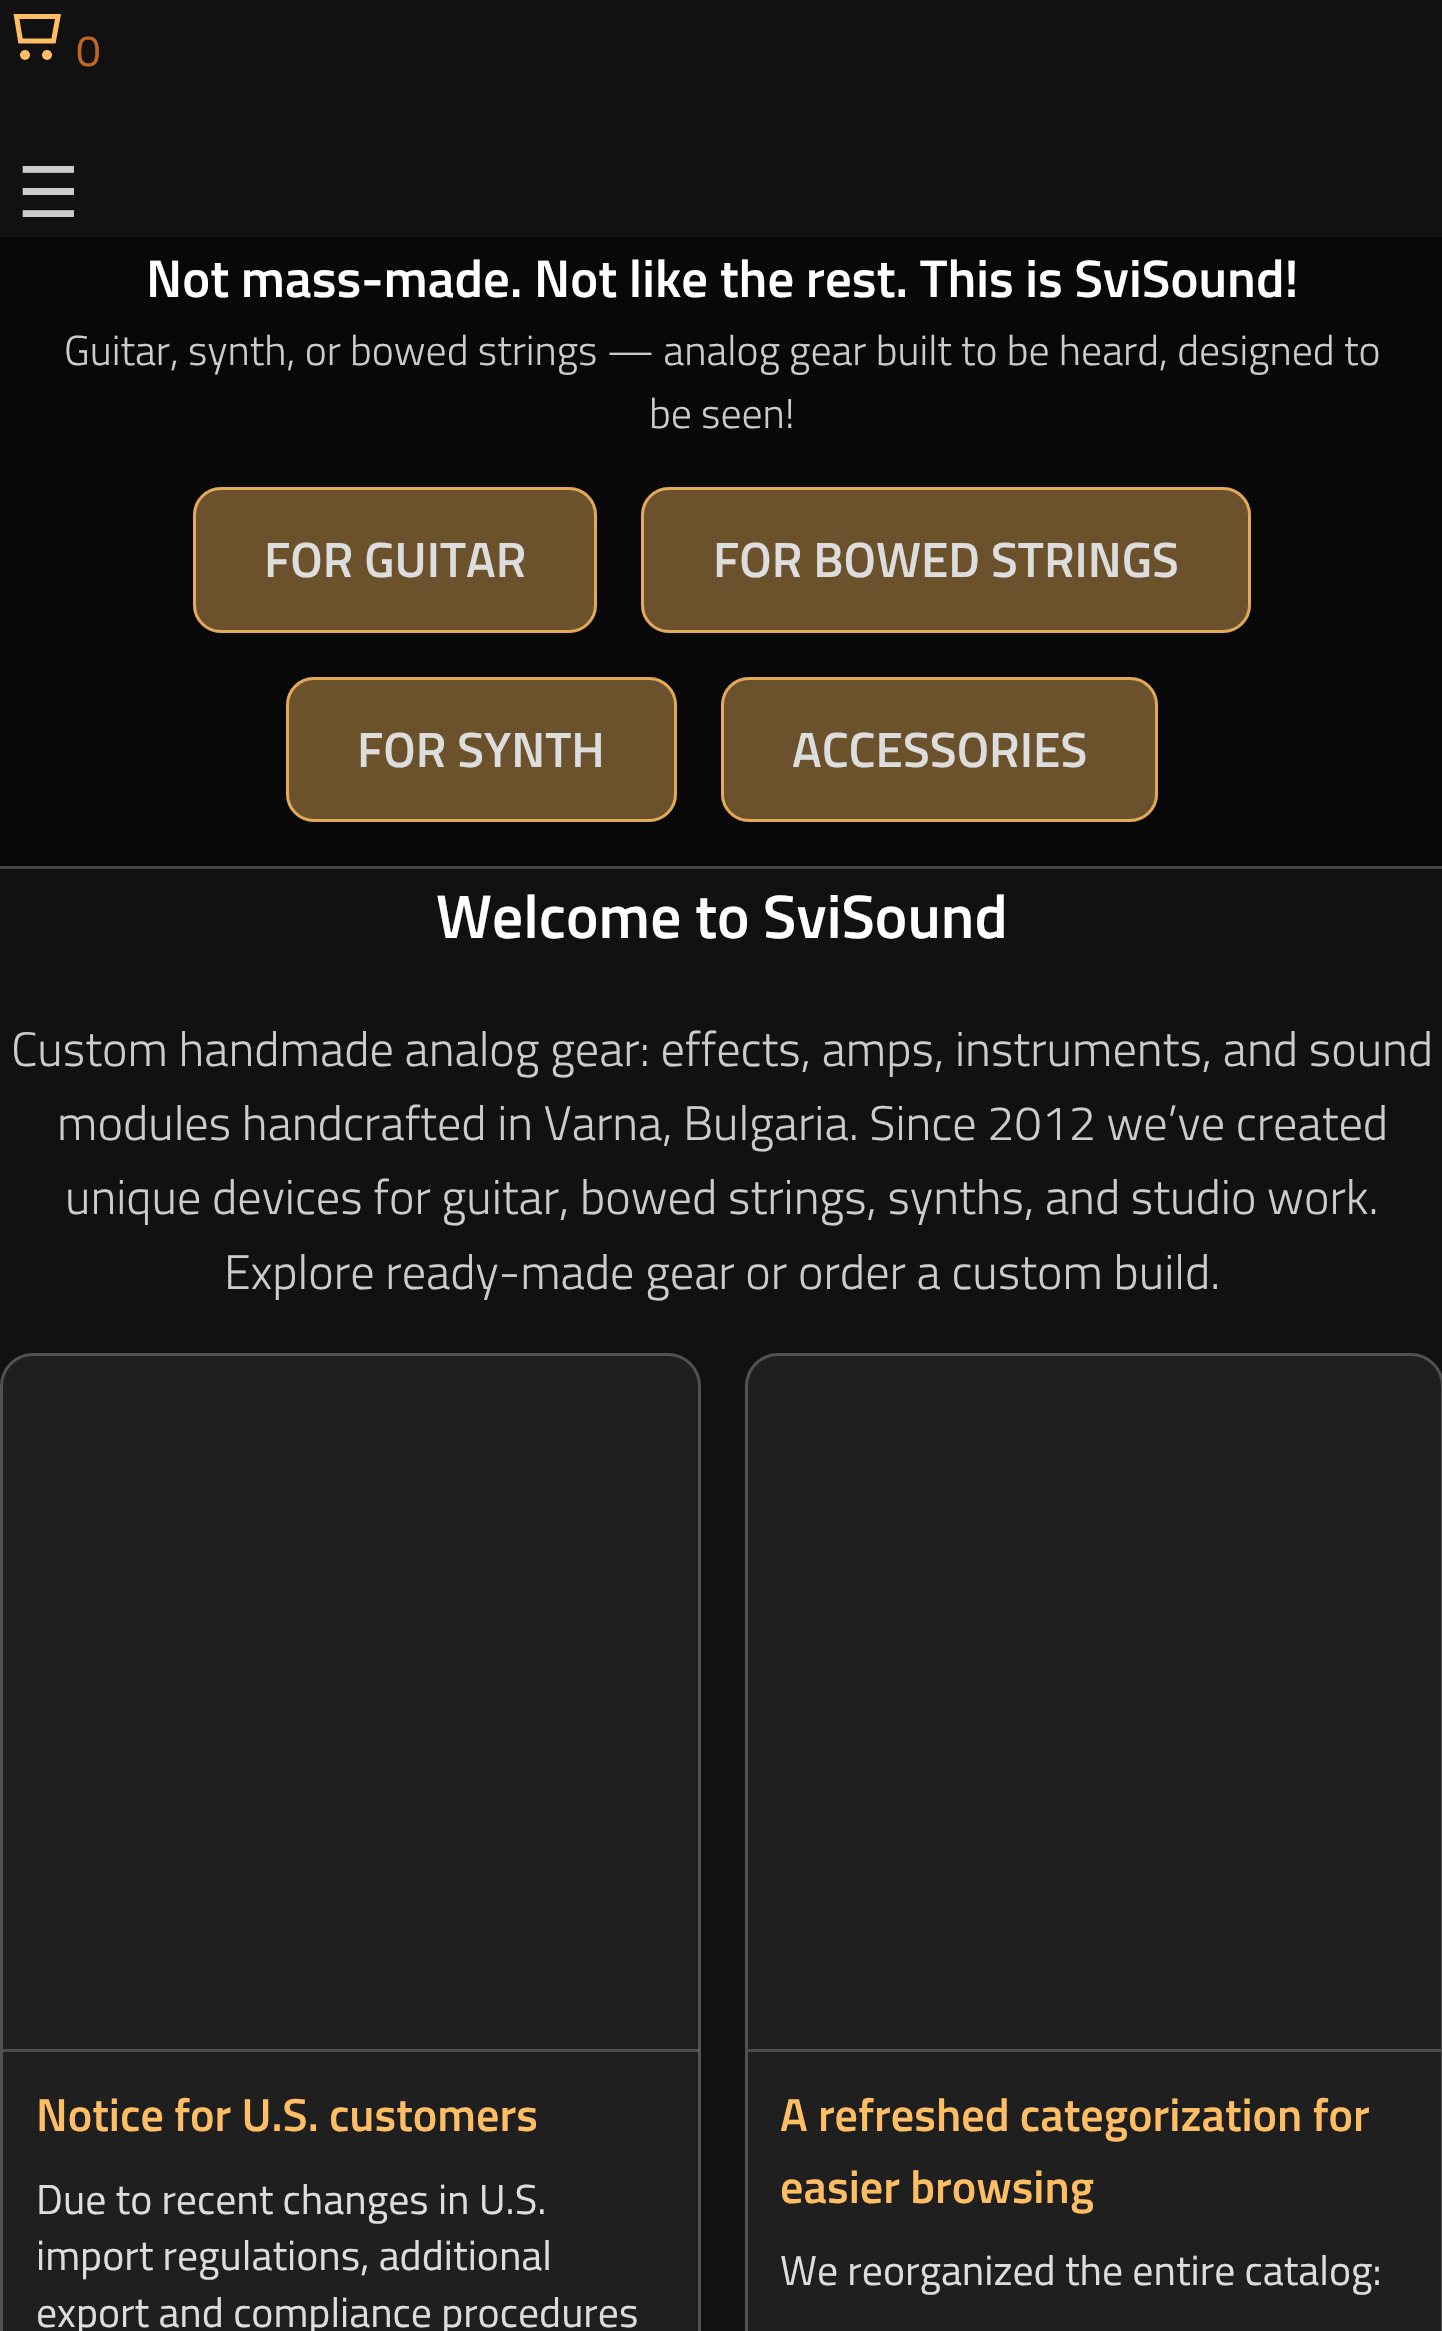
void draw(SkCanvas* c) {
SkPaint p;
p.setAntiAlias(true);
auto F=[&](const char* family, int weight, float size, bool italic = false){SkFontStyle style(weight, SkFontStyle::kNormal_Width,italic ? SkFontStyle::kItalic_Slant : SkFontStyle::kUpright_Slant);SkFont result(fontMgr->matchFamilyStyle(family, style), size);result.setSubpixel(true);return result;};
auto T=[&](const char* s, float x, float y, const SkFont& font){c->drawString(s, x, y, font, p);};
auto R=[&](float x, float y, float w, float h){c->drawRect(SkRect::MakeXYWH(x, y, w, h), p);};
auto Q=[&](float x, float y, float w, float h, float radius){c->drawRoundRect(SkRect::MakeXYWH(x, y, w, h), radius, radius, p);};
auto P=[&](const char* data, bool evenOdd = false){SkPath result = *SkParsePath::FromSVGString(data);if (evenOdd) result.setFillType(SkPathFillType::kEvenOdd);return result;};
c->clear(0xff111111);
auto f1 = F("Titillium Web",400,44);
p.setColor(0xffc06620);
T("0",76,66,f1);
p.setStroke(true);
p.setStrokeWidth(5);
p.setColor(0xffffbe63);
c->drawPath(P("M16.5 16.5h41.5l-4.5 24.5h-33z"),p);
p.setStroke(false);
c->drawCircle(25,55,5,p);
c->drawCircle(47,55,5,p);
auto f2 = F("DejaVu Sans",400,70);
p.setColor(0xffcccccc);
T("☰",17,217,f2);
p.setColor(0xff444444);
R(0,866,1442,3);
p.setColor(0xff080808);
R(0,237,1442,629);
auto f3 = F("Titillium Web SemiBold",600,52.8);
p.setColor(0xffffffff);
T("Not mass-made. Not like the rest. This is SviSound!",146,297,f3);
auto f4 = F("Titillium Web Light",300,41.8);
p.setColor(0xffcccccc);
T("Guitar, synth, or bowed strings — analog gear built to be heard, designed to",64,365,f4);
T("be seen!",649,428,f4);
p.setColor(0xff6b512c);
Q(193,487,404,146,28);
p.setStroke(true);
p.setStrokeWidth(3);
p.setColor(0xccffbe63);
c->drawRoundRect(SkRect::MakeXYWH(194.5,488.5,401,143),26.5,26.5,p);
auto f5 = F("Titillium Web SemiBold",600,49.5);
p.setStroke(false);
p.setColor(0xffdddddd);
T("FOR GUITAR",264,577,f5);
p.setColor(0xff6b512c);
Q(641,487,610,146,28);
p.setStroke(true);
p.setColor(0xccffbe63);
c->drawRoundRect(SkRect::MakeXYWH(642.5,488.5,607,143),26.5,26.5,p);
p.setStroke(false);
p.setColor(0xffdddddd);
T("FOR BOWED STRINGS",713,577,f5);
p.setColor(0xff6b512c);
Q(286,677,391,145,28);
p.setStroke(true);
p.setColor(0xccffbe63);
c->drawRoundRect(SkRect::MakeXYWH(287.5,678.5,388,142),26.5,26.5,p);
p.setStroke(false);
p.setColor(0xffdddddd);
T("FOR SYNTH",357,767,f5);
p.setColor(0xff6b512c);
Q(721,677,437,145,28);
p.setStroke(true);
p.setColor(0xccffbe63);
c->drawRoundRect(SkRect::MakeXYWH(722.5,678.5,434,142),26.5,26.5,p);
p.setStroke(false);
p.setColor(0xffdddddd);
T("ACCESSORIES",792,767,f5);
auto f6 = F("Titillium Web SemiBold",600,61.5);
p.setColor(0xffffffff);
T("Welcome to SviSound",436,938,f6);
auto f7 = F("Titillium Web Light",300,48.4);
p.setColor(0xffcccccc);
T("Custom handmade analog gear: effects, amps, instruments, and sound",11,1066,f7);
T("modules handcrafted in Varna, Bulgaria. Since 2012 we’ve created",57,1140,f7);
T("unique devices for guitar, bowed strings, synths, and studio work.",65,1214,f7);
T("Explore ready-made gear or order a custom build.",224,1289,f7);
p.setColor(0xff1f1f1f);
Q(0,1353,701,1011,33);
p.setStroke(true);
p.setColor(0x38ffffff);
c->drawRoundRect(SkRect::MakeXYWH(1.5,1354.5,698,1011),31.5,31.5,p);
p.setStroke(false);
p.setColor(0x33ffffff);
R(3,2049,696,3);
auto f8 = F("Titillium Web SemiBold",600,46.25);
p.setColor(0xffffbe63);
T("Notice for U.S. customers",36,2131,f8);
auto f9 = F("Titillium Web",400,41.8);
p.setColor(0xffdddddd);
T("Due to recent changes in U.S.",36,2214,f9);
T("import regulations, additional",36,2270,f9);
T("export and compliance procedures",36,2327,f9);
p.setColor(0xff1f1f1f);
Q(745,1353,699,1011,33);
p.setStroke(true);
p.setColor(0x38ffffff);
c->drawRoundRect(SkRect::MakeXYWH(746.5,1354.5,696,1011),31.5,31.5,p);
p.setStroke(false);
p.setColor(0xff4c4c4c);
R(748,2049,693,3);
p.setColor(0xffffbe63);
T("A refreshed categorization for",780,2131,f8);
T("easier browsing",780,2203,f8);
p.setColor(0xffdddddd);
T("We reorganized the entire catalog:",780,2285,f9);
}
